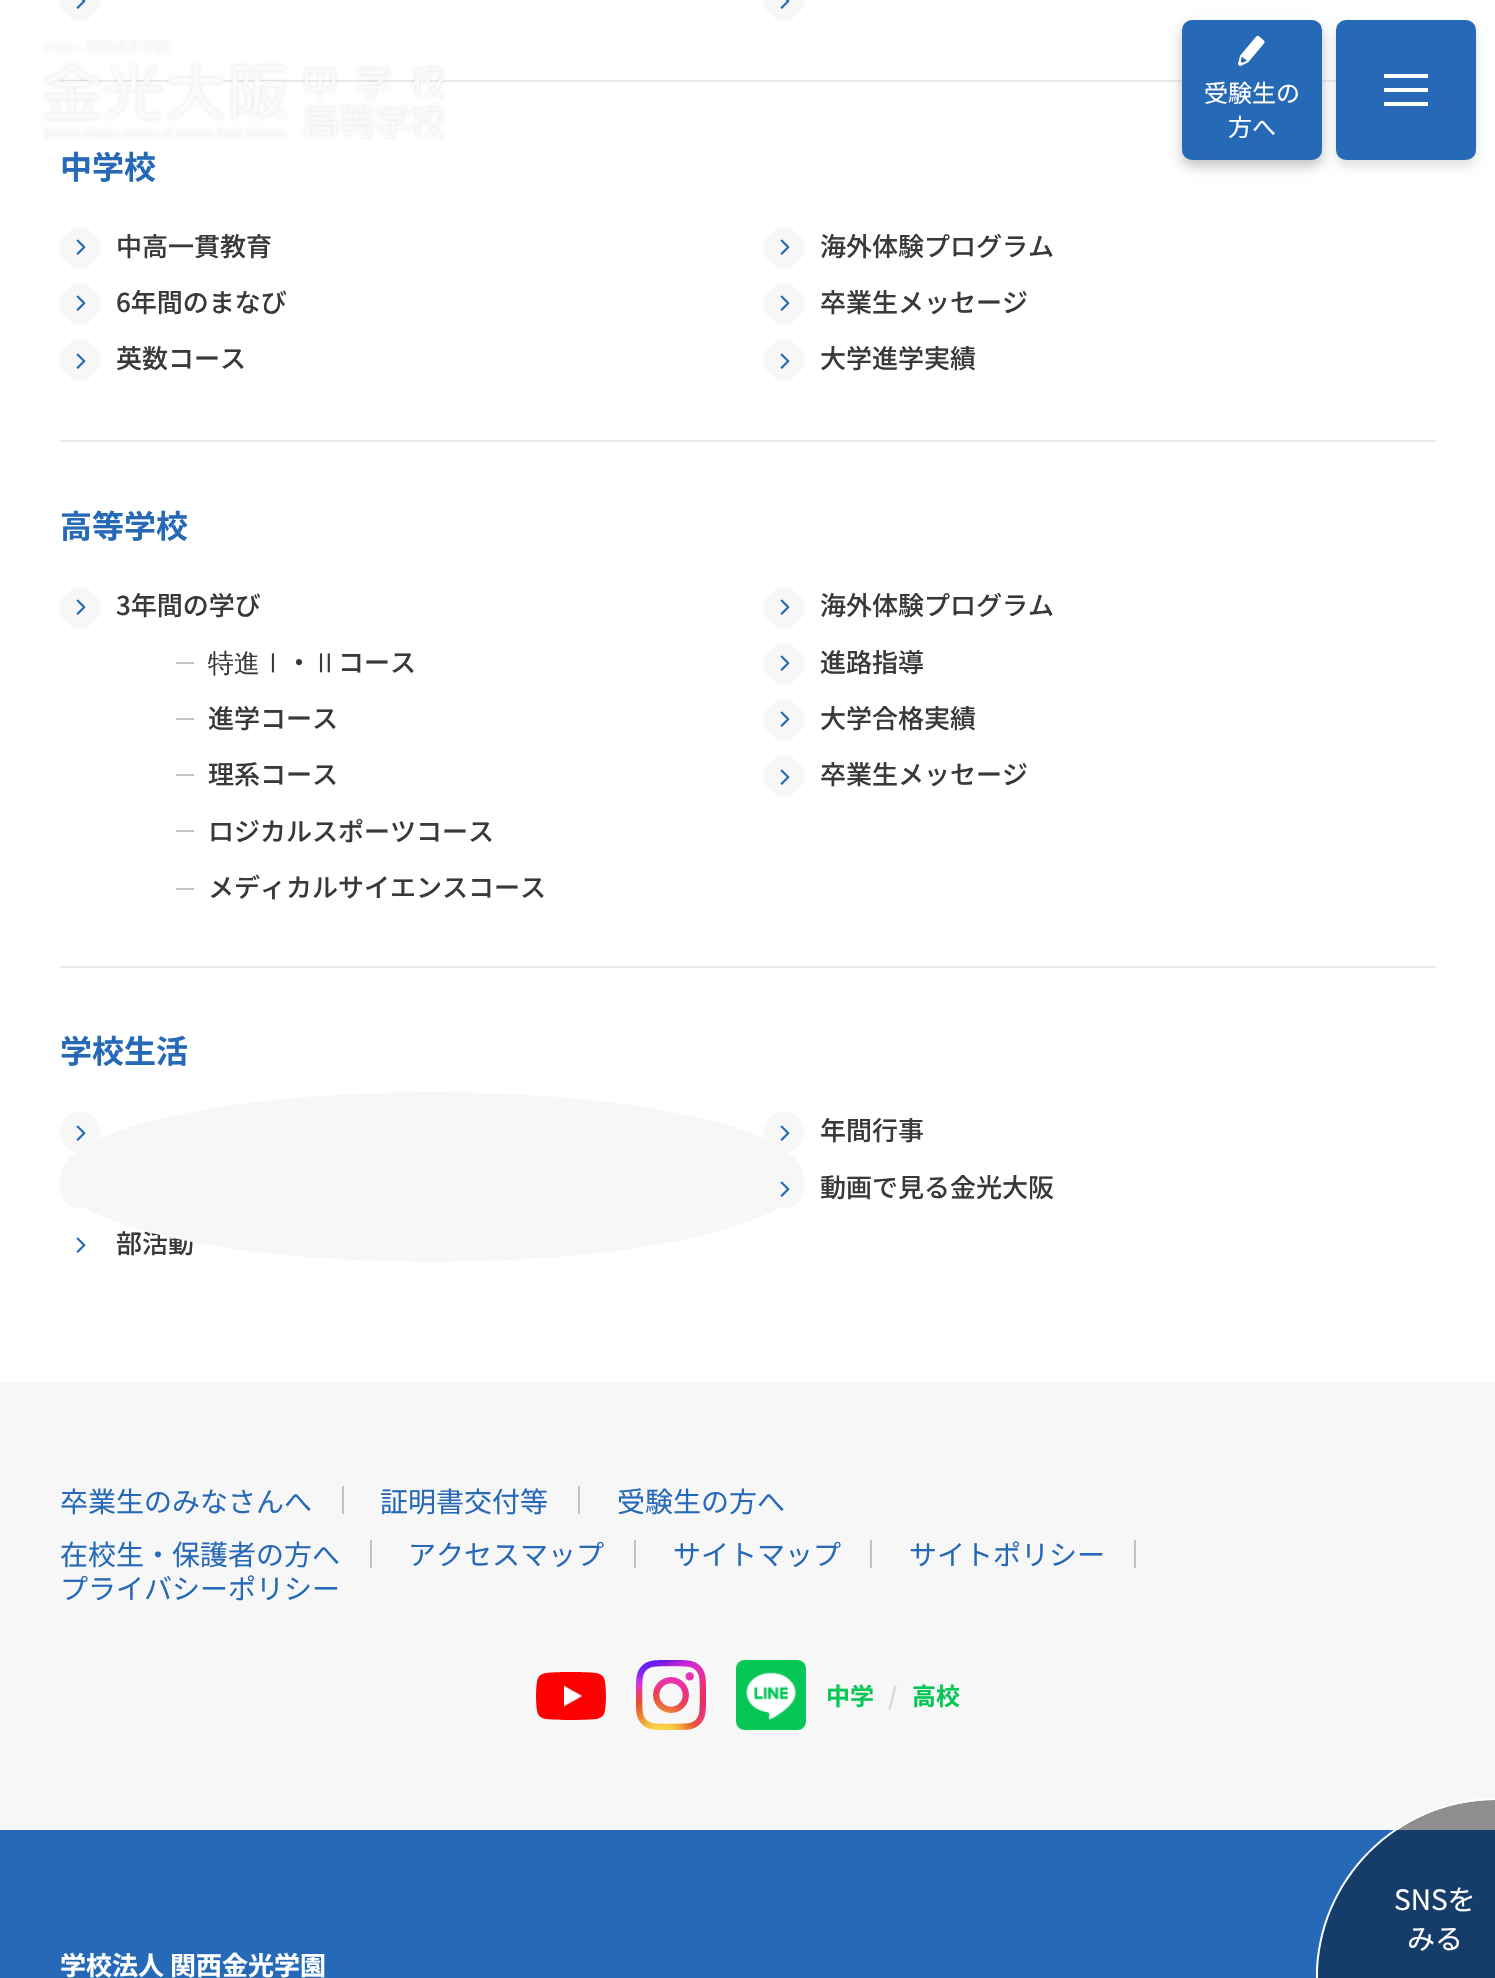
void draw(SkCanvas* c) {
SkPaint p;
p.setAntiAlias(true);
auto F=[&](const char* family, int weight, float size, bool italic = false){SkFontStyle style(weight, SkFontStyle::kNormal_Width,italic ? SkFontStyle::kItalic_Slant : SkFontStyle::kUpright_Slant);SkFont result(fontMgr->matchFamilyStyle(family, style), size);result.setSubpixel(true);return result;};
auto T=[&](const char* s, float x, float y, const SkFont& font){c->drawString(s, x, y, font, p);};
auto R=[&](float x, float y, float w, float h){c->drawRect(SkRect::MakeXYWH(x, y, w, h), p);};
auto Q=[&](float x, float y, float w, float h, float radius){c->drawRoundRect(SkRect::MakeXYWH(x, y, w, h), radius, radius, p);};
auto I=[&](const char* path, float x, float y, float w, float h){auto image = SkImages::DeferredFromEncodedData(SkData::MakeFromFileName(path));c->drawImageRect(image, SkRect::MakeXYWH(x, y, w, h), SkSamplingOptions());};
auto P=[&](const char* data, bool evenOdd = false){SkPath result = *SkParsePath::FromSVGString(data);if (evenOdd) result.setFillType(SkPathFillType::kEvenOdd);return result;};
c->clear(0xffffffff);
p.setColor(0xffeaeaea);
R(60,80,1276,2);
I("1.png",43,40,402,100);
p.setColor(0x1f000000);
p.setMaskFilter(SkMaskFilter::MakeBlur(kNormal_SkBlurStyle, 6));
c->drawRoundRect(SkRect::MakeXYWH(1182,26,140,140),10,10,p);
p.setMaskFilter(nullptr);
p.setMaskFilter(SkMaskFilter::MakeBlur(kNormal_SkBlurStyle, 6));
c->drawRoundRect(SkRect::MakeXYWH(1182,26,140,140),10,10,p);
p.setMaskFilter(nullptr);
p.setColor(0xff2669b7);
Q(1182,20,140,140,10);
I("2.png",1238,35,27,31);
auto f1 = F("Noto Sans JP",400,24);
p.setColor(0xffffffff);
T("受験生の",1204,102,f1);
T("方へ",1228,136,f1);
p.setColor(0x1f000000);
p.setMaskFilter(SkMaskFilter::MakeBlur(kNormal_SkBlurStyle, 6));
c->drawRoundRect(SkRect::MakeXYWH(1336,26,140,140),10,10,p);
p.setMaskFilter(nullptr);
p.setColor(0xff2669b7);
Q(1336,20,140,140,10);
p.setColor(0xffffffff);
R(1384,74,44,4);
R(1384,88,44,4);
R(1384,102,44,4);
p.setColor(0xfff7f7f7);
c->drawCircle(80,0,20,p);
I("3.png",76,0,10,9);
c->drawCircle(784,0,20,p);
I("3.png",780,0,10,9);
auto f2 = F("Noto Sans JP",700,32);
p.setColor(0xff2669b7);
T("中学校",60,179,f2);
p.setColor(0xfff7f7f7);
c->drawCircle(80,248,20,p);
I("4.png",76,239,10,16);
auto f3 = F("Noto Sans JP",500,26);
p.setColor(0xff393939);
T("中高一貫教育",116,256,f3);
p.setColor(0xfff7f7f7);
c->drawCircle(784,248,20,p);
I("4.png",780,239,10,16);
p.setColor(0xff393939);
T("海外体験プログラム",820,256,f3);
p.setColor(0xfff7f7f7);
c->drawCircle(80,304,20,p);
I("4.png",76,295,10,16);
p.setColor(0xff393939);
T("6年間のまなび",116,312,f3);
p.setColor(0xfff7f7f7);
c->drawCircle(784,304,20,p);
I("4.png",780,295,10,16);
p.setColor(0xff393939);
T("卒業生メッセージ",820,312,f3);
p.setColor(0xfff7f7f7);
c->drawCircle(80,360,20,p);
I("4.png",76,353,10,16);
p.setColor(0xff393939);
T("英数コース",116,368,f3);
p.setColor(0xfff7f7f7);
c->drawCircle(784,360,20,p);
I("4.png",780,353,10,16);
p.setColor(0xff393939);
T("大学進学実績",820,368,f3);
p.setColor(0xffeaeaea);
R(60,440,1376,2);
p.setColor(0xff2669b7);
T("高等学校",60,538,f2);
p.setColor(0xfff7f7f7);
c->drawCircle(80,608,20,p);
I("4.png",76,599,10,16);
p.setColor(0xff393939);
T("3年間の学び",116,615,f3);
p.setColor(0xffc3c3c3);
R(176,662,18,2);
auto f4 = F("WenQuanYi Zen Hei",500,26);
p.setColor(0xff393939);
T("特進Ⅰ",208,672,f4);
T("・",286,672,f3);
T("Ⅱ",312,672,f4);
T("コース",338,672,f3);
p.setColor(0xffc3c3c3);
R(176,718,18,2);
p.setColor(0xff393939);
T("進学コース",208,728,f3);
p.setColor(0xffc3c3c3);
R(176,774,18,2);
p.setColor(0xff393939);
T("理系コース",208,784,f3);
p.setColor(0xffc3c3c3);
R(176,830,18,2);
p.setColor(0xff393939);
T("ロジカルスポーツコース",208,841,f3);
p.setColor(0xffc3c3c3);
R(176,888,18,2);
p.setColor(0xff393939);
T("メディカルサイエンスコース",208,897,f3);
p.setColor(0xfff7f7f7);
c->drawCircle(784,608,20,p);
I("4.png",780,599,10,16);
p.setColor(0xff393939);
T("海外体験プログラム",820,615,f3);
p.setColor(0xfff7f7f7);
c->drawCircle(784,664,20,p);
I("4.png",780,655,10,16);
p.setColor(0xff393939);
T("進路指導",820,672,f3);
p.setColor(0xfff7f7f7);
c->drawCircle(784,720,20,p);
I("4.png",780,711,10,16);
p.setColor(0xff393939);
T("大学合格実績",820,728,f3);
p.setColor(0xfff7f7f7);
c->drawCircle(784,776,20,p);
I("4.png",780,769,10,16);
p.setColor(0xff393939);
T("卒業生メッセージ",820,784,f3);
p.setColor(0xffeaeaea);
R(60,966,1376,2);
p.setColor(0xff2669b7);
T("学校生活",60,1063,f2);
p.setColor(0xfff7f7f7);
c->drawCircle(80,1132,20,p);
I("4.png",76,1125,10,16);
c->drawCircle(80,1188,20,p);
p.setColor(0xff393939);
T("部活動",116,1253,f3);
p.setColor(0xfff7f7f7);
c->drawOval(SkRect::MakeXYWH(60,1092,744,170),p);
c->drawCircle(784,1132,20,p);
I("4.png",780,1125,10,16);
p.setColor(0xff393939);
T("年間行事",820,1140,f3);
p.setColor(0xfff7f7f7);
c->drawCircle(784,1188,20,p);
I("4.png",780,1181,10,16);
p.setColor(0xff393939);
T("動画で見る金光大阪",820,1197,f3);
I("5.png",76,1237,10,16);
p.setColor(0xfff7f7f7);
R(0,1382,1495,448);
auto f5 = F("Noto Sans JP",400,28);
p.setColor(0xff2669b7);
T("卒業生のみなさんへ",60,1512,f5);
p.setColor(0xffc3c3c3);
R(342,1486,2,28);
p.setColor(0xff2669b7);
T("証明書交付等",380,1512,f5);
p.setColor(0xffc3c3c3);
R(578,1486,2,28);
p.setColor(0xff2669b7);
T("受験生の方へ",617,1512,f5);
T("在校生・保護者の方へ",60,1565,f5);
p.setColor(0xffc3c3c3);
R(370,1540,2,28);
p.setColor(0xff2669b7);
T("アクセスマップ",408,1565,f5);
p.setColor(0xffc3c3c3);
R(634,1540,2,28);
p.setColor(0xff2669b7);
T("サイトマップ",673,1565,f5);
p.setColor(0xffc3c3c3);
R(870,1540,2,28);
p.setColor(0xff2669b7);
T("サイトポリシー",909,1565,f5);
p.setColor(0xffc3c3c3);
R(1134,1540,2,28);
p.setColor(0xff2669b7);
T("プライバシーポリシー",60,1599,f5);
I("6.png",536,1672,70,48);
I("7.png",636,1660,70,70);
I("8.png",736,1660,70,70);
auto f6 = F("Noto Sans JP",700,24);
p.setColor(0xff06c755);
T("中学",826,1705,f6);
p.setColor(0xffdbdbdb);
T("/",888,1705,f6);
p.setColor(0xff06c755);
T("高校",912,1705,f6);
p.setColor(0xff2669b7);
R(0,1830,1495,148);
p.setColor(0x6b000000);
c->drawPath(P("M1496 1800v178h-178c0-98.5 79.5-178 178-178z"),p);
p.setColor(0xffffffff);
c->drawPath(P("M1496 1798v180h-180c0-99 81-180 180-180zm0 2v178h-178c0-98 80-178 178-178z",true),p);
T("SNSを",1394,1910,f5);
T("みる",1407,1949,f5);
auto f7 = F("Noto Sans JP",700,26);
T("学校法人 関西金光学園",60,1975,f7);
}
